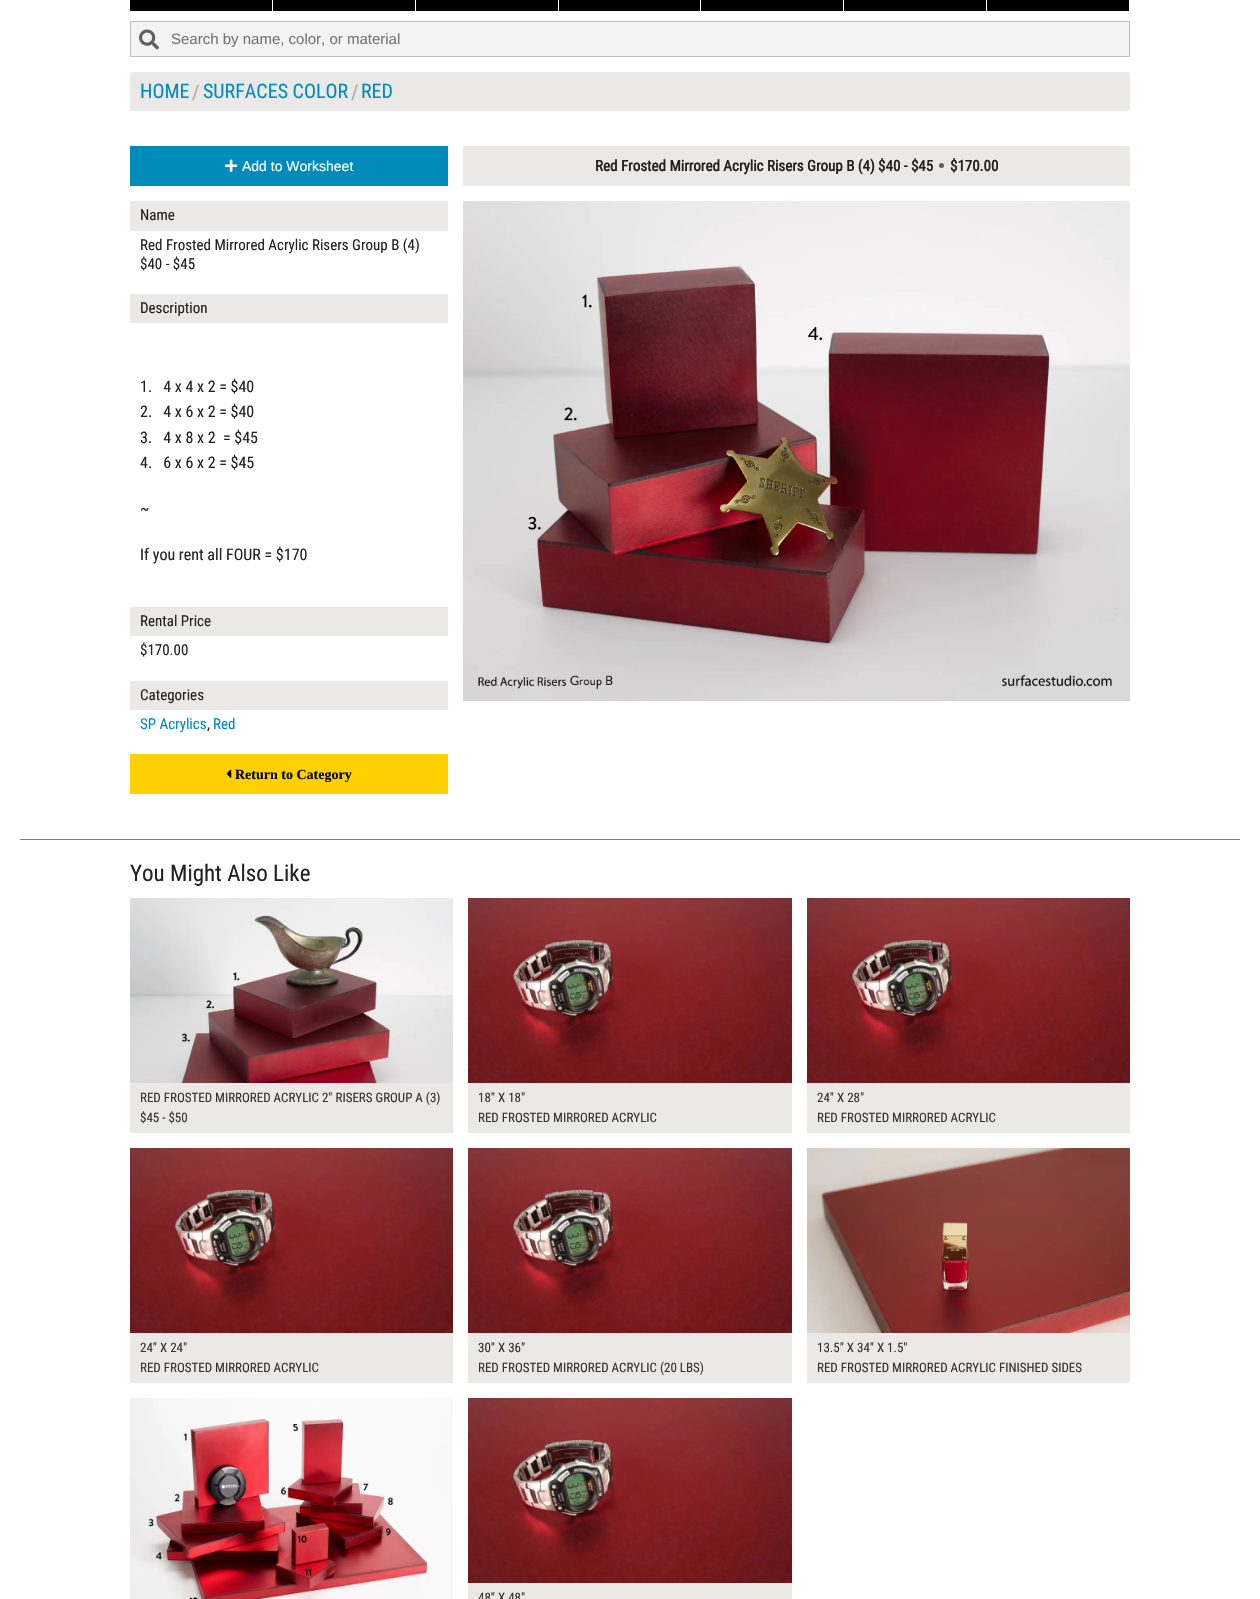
void draw(SkCanvas* c) {
SkPaint p;
p.setAntiAlias(true);
auto F=[&](const char* family, int weight, float size, bool italic = false){SkFontStyle style(weight, SkFontStyle::kNormal_Width,italic ? SkFontStyle::kItalic_Slant : SkFontStyle::kUpright_Slant);SkFont result(fontMgr->matchFamilyStyle(family, style), size);result.setSubpixel(true);return result;};
auto T=[&](const char* s, float x, float y, const SkFont& font){c->drawString(s, x, y, font, p);};
auto R=[&](float x, float y, float w, float h){c->drawRect(SkRect::MakeXYWH(x, y, w, h), p);};
auto Q=[&](float x, float y, float w, float h, float radius){c->drawRoundRect(SkRect::MakeXYWH(x, y, w, h), radius, radius, p);};
auto I=[&](const char* path, float x, float y, float w, float h){auto image = SkImages::DeferredFromEncodedData(SkData::MakeFromFileName(path));c->drawImageRect(image, SkRect::MakeXYWH(x, y, w, h), SkSamplingOptions());};
c->clear(0xffffffff);
p.setColor(0xff000000);
R(130,0,142,11);
R(273,0,142,11);
R(416,0,142,11);
R(559,0,141,11);
R(701,0,142,11);
R(844,0,142,11);
R(987,0,142,11);
p.setColor(0xfff3f3f3);
c->drawRect(SkRect::MakeXYWH(130.5,21.5,999,35),p);
p.setStroke(true);
p.setStrokeWidth(1);
p.setColor(0xffbfbfbf);
c->drawRect(SkRect::MakeXYWH(130.5,21.5,999,35),p);
I("1.png",139,29,20,21);
auto f1 = F("Liberation Sans",400,15);
p.setStroke(false);
p.setColor(0xff757575);
T("Search by name, color, or material",171,44,f1);
p.setColor(0xffebe8e8);
Q(130,72,1000,39,3);
auto f2 = F("Roboto Condensed",400,20);
p.setColor(0xff008cba);
T("HOME",140,98,f2);
p.setColor(0xffaaaaaa);
T("/",192,99,f2);
p.setColor(0xff008cba);
T("SURFACES COLOR",203,98,f2);
p.setColor(0xffaaaaaa);
T("/",351,99,f2);
p.setColor(0xff008cba);
T("RED",361,98,f2);
R(130,146,318,40);
I("2.png",225,159,13,13);
auto f3 = F("Liberation Sans",400,14);
p.setColor(0xffffffff);
T("Add to Worksheet",242,171,f3);
p.setColor(0xffebe8e8);
R(130,201,318,30);
auto f4 = F("Roboto Condensed",400,15);
p.setColor(0xff222222);
T("Name",140,220,f4);
T("Red Frosted Mirrored Acrylic Risers Group B (4)",140,250,f4);
T("$40 - $45",140,269,f4);
p.setColor(0xffebe8e8);
R(130,294,318,29);
p.setColor(0xff222222);
T("Description",140,313,f4);
auto f5 = F("Roboto Condensed",400,16);
T("1.   4 x 4 x 2 = $40",140,392,f5);
T("2.   4 x 6 x 2 = $40",140,417,f5);
T("3.   4 x 8 x 2  = $45",140,443,f5);
T("4.   6 x 6 x 2 = $45",140,468,f5);
T("~",140,514,f5);
T("If you rent all FOUR = $170",140,560,f5);
p.setColor(0xffebe8e8);
R(130,607,318,29);
p.setColor(0xff222222);
T("Rental Price",140,626,f4);
T("$170.00",140,655,f4);
p.setColor(0xffebe8e8);
R(130,681,318,29);
p.setColor(0xff222222);
T("Categories",140,700,f4);
p.setColor(0xff008cba);
T("SP Acrylics",140,729,f4);
p.setColor(0xff222222);
T(",",207,729,f4);
p.setColor(0xff008cba);
T("Red",213,729,f4);
p.setColor(0xfffed000);
R(130,754,318,40);
I("3.png",226,769,6,9);
auto f6 = F("Liberation Serif",700,14);
p.setColor(0xff000000);
T("Return to Category",235,779,f6);
p.setColor(0xffebe8e8);
R(463,146,667,40);
auto f7 = F("Roboto Condensed",700,15);
p.setColor(0xff222222);
T("Red Frosted Mirrored Acrylic Risers Group B (4) $40 - $45",595,171,f7);
p.setColor(0xff5f5e5e);
c->drawCircle(941.5,165.5,2.5,p);
p.setColor(0xff222222);
T("$170.00",950,171,f7);
I("4.png",463,201,667,500);
p.setColor(0xff808080);
R(20,839,1220,1);
auto f8 = F("Roboto Condensed",400,23);
p.setColor(0xff222222);
T("You Might Also Like",130,881,f8);
I("5.png",130,898,323,185);
p.setColor(0xffebe8e8);
R(130,1083,323,50);
auto f9 = F("Roboto Condensed",400,13);
p.setColor(0xff333333);
T("RED FROSTED MIRRORED ACRYLIC 2\" RISERS GROUP A (3)",140,1102,f9);
T("$45 - $50",140,1122,f9);
I("6.png",468,898,324,185);
p.setColor(0xffebe8e8);
R(468,1083,324,50);
p.setColor(0xff333333);
T("18\" X 18\"",478,1102,f9);
T("RED FROSTED MIRRORED ACRYLIC",478,1122,f9);
I("7.png",807,898,323,185);
p.setColor(0xffebe8e8);
R(807,1083,323,50);
p.setColor(0xff333333);
T("24\" X 28\"",817,1102,f9);
T("RED FROSTED MIRRORED ACRYLIC",817,1122,f9);
I("8.png",130,1148,323,185);
p.setColor(0xffebe8e8);
R(130,1333,323,50);
p.setColor(0xff333333);
T("24\" X 24\"",140,1352,f9);
T("RED FROSTED MIRRORED ACRYLIC",140,1372,f9);
I("9.png",468,1148,324,185);
p.setColor(0xffebe8e8);
R(468,1333,324,50);
p.setColor(0xff333333);
T("30\" X 36\"",478,1352,f9);
T("RED FROSTED MIRRORED ACRYLIC (20 LBS)",478,1372,f9);
I("10.png",807,1148,323,185);
p.setColor(0xffebe8e8);
R(807,1333,323,50);
p.setColor(0xff333333);
T("13.5\" X 34\" X 1.5\"",817,1352,f9);
T("RED FROSTED MIRRORED ACRYLIC FINISHED SIDES",817,1372,f9);
I("11.png",130,1398,323,201);
I("12.png",468,1398,324,185);
p.setColor(0xffebe8e8);
R(468,1583,324,16);
p.setColor(0xff333333);
T("48\" X 48\"",478,1602,f9);
}
